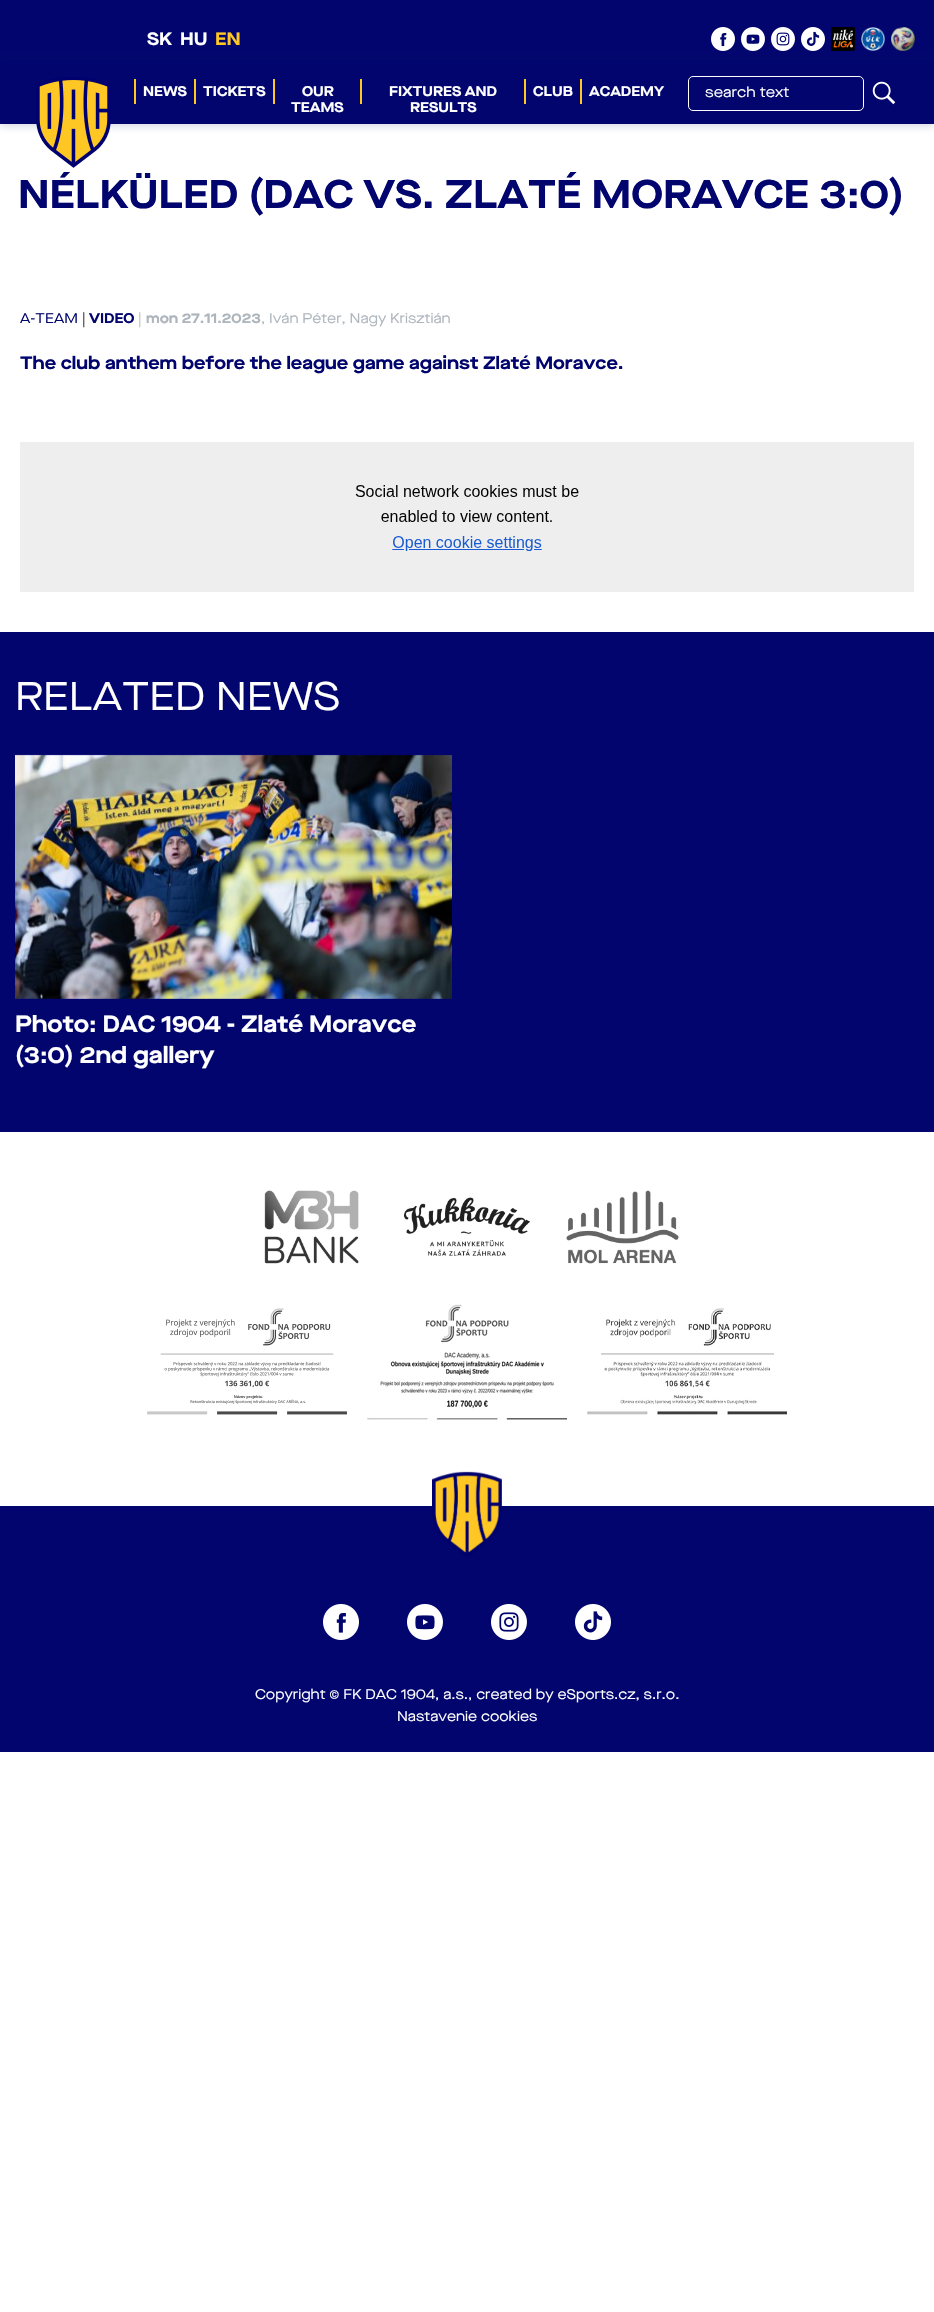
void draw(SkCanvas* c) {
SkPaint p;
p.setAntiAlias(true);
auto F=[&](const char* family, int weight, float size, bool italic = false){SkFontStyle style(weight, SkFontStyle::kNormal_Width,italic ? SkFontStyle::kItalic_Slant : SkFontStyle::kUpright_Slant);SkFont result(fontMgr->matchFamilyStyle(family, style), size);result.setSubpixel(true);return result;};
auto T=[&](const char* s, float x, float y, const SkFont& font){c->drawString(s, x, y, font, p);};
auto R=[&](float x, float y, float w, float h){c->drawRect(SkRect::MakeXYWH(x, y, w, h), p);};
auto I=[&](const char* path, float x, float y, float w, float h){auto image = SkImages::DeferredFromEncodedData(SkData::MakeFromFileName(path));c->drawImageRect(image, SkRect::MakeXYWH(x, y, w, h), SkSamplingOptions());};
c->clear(0xffffffff);
p.setColor(0xff01056d);
R(0,0,934,60);
auto f1 = F("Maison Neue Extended",700,18);
p.setColor(0xffffffff);
T("SK",147,45,f1);
T("HU",180,45,f1);
p.setColor(0xffffc723);
T("EN",215,45,f1);
I("1.png",711,27,24,24);
I("2.png",741,27,24,24);
I("3.png",771,27,24,24);
I("4.png",801,27,24,24);
I("5.png",831,27,24,24);
I("6.png",861,27,24,24);
I("7.png",891,27,24,24);
p.setColor(0x33123063);
p.setMaskFilter(SkMaskFilter::MakeBlur(kNormal_SkBlurStyle, 4));
c->drawRect(SkRect::MakeXYWH(0,62,934,64),p);
p.setMaskFilter(nullptr);
p.setColor(0xff01056d);
R(0,60,934,64);
I("8.png",36,77,75,91);
p.setColor(0xffffc723);
R(134,79,2,25);
auto f2 = F("Maison Neue Extended",700,14);
p.setColor(0xffffffff);
T("NEWS",143,96,f2);
p.setColor(0xffffc723);
R(194,79,2,25);
p.setColor(0xffffffff);
T("TICKETS",203,96,f2);
p.setColor(0xffffc723);
R(273,79,2,25);
p.setColor(0xffffffff);
T("OUR",302,96,f2);
T("TEAMS",291,112,f2);
p.setColor(0xffffc723);
R(360,79,2,25);
p.setColor(0xffffffff);
T("FIXTURES AND",389,96,f2);
T("RESULTS",410,112,f2);
p.setColor(0xffffc723);
R(524,79,2,25);
p.setColor(0xffffffff);
T("CLUB",533,96,f2);
p.setColor(0xffffc723);
R(580,79,2,25);
p.setColor(0xffffffff);
T("ACADEMY",589,96,f2);
p.setStroke(true);
p.setStrokeWidth(1);
c->drawRoundRect(SkRect::MakeXYWH(688.5,76.5,175,34),4.5,4.5,p);
auto f3 = F("Maison Neue Extended",400,14.5);
p.setStroke(false);
T("search text",705,97,f3);
I("9.png",872,81,24,24);
auto f4 = F("Maison Neue Extended",700,40);
p.setColor(0xff01056d);
T("NÉLKÜLED (DAC VS. ZLATÉ MORAVCE 3:0)",18,208,f4);
auto f5 = F("Maison Neue Extended",400,14);
T("A-TEAM",20,323,f5);
p.setColor(0xff1b1c1c);
T("|",82,323,f5);
p.setColor(0xff01056d);
T("VIDEO",89,323,f2);
p.setColor(0xffadb5bd);
T("|",138,323,f5);
T("mon 27.11.2023",146,323,f2);
T(", Iván Péter, Nagy Krisztián",261,323,f5);
p.setColor(0xff01056d);
T("The club anthem before the league game against Zlaté Moravce.",20,369,f1);
I("10.png",20,442,894,150);
R(0,632,934,500);
auto f6 = F("Maison Neue Extended",400,40);
p.setColor(0xffffffff);
T("RELATED NEWS",15,710,f6);
I("11.png",15,754,437,245);
auto f7 = F("Maison Neue Extended",700,23.4);
T("Photo: DAC 1904 - Zlaté Moravce",15,1032,f7);
T("(3:0) 2nd gallery",15,1063,f7);
I("12.png",264,1190,95,74);
I("13.png",404,1197,126,59);
I("14.png",566,1190,113,74);
I("15.png",147,1308,200,107);
I("16.png",367,1304,200,116);
I("17.png",587,1308,200,107);
p.setColor(0xff01056d);
R(0,1506,934,246);
I("18.png",432,1471,70,86);
I("19.png",323,1604,36,36);
I("20.png",407,1604,36,36);
I("21.png",491,1604,36,36);
I("22.png",575,1604,36,36);
p.setColor(0xffffffff);
T("Copyright © FK DAC 1904, a.s., created by eSports.cz, s.r.o.",255,1699,f5);
T("Nastavenie cookies",397,1721,f5);
}
